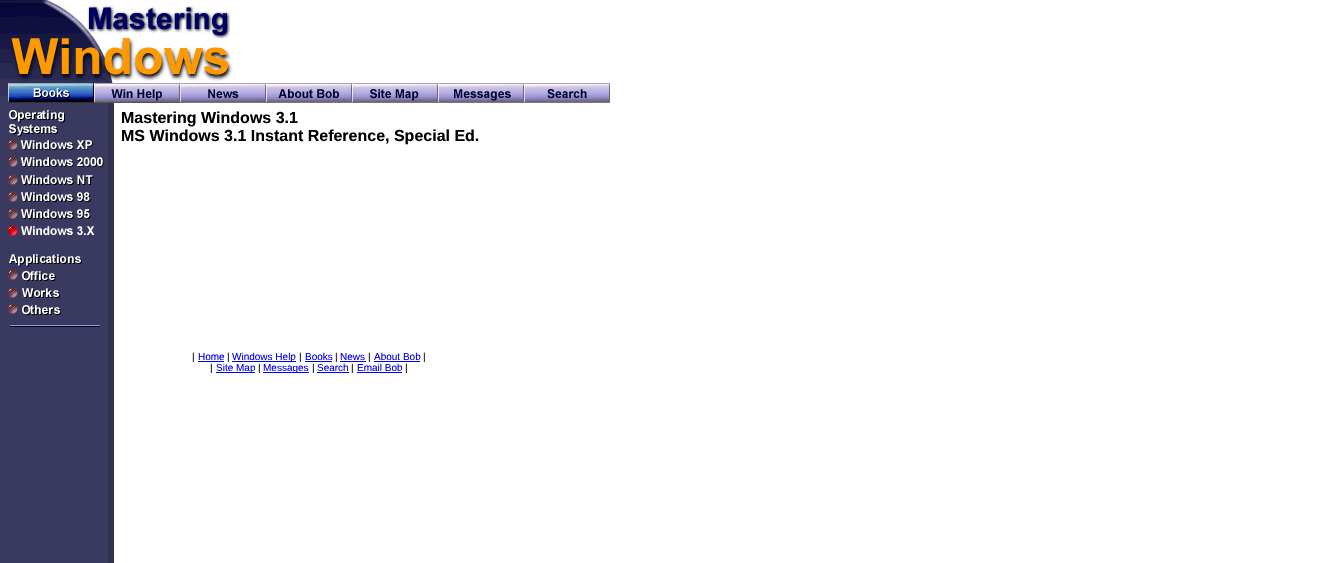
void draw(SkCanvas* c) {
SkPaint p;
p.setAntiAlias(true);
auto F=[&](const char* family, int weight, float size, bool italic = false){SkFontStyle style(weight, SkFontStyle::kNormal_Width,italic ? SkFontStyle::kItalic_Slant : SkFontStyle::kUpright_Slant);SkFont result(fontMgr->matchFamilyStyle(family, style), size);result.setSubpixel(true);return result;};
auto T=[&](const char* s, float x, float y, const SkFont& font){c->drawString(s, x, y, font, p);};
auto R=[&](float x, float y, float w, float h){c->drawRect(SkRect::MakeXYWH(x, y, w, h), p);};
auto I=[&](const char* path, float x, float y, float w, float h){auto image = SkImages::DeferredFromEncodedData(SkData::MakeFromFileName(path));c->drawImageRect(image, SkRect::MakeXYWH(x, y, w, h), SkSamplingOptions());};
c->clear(0xffffffff);
I("1.png",0,0,233,563);
I("2.png",8,83,86,20);
I("3.png",94,83,86,20);
I("4.png",180,83,86,20);
I("5.png",266,83,86,20);
I("6.png",352,83,86,20);
I("7.png",438,83,86,20);
I("8.png",524,83,86,20);
I("9.png",9,110,56,27);
I("10.png",8,139,85,11);
I("11.png",8,156,96,11);
I("12.png",8,174,86,11);
I("13.png",8,191,83,11);
I("14.png",8,208,83,11);
I("15.png",8,225,87,12);
I("16.png",9,254,73,13);
I("17.png",8,270,48,12);
I("18.png",8,287,52,11);
I("19.png",8,303,53,13);
I("20.png",10,325,90,2);
auto f1 = F("Liberation Sans",700,16);
p.setColor(0xff000000);
T("Mastering Windows 3.1",121,123,f1);
T("MS Windows 3.1 Instant Reference, Special Ed.",121,141,f1);
auto f2 = F("Liberation Sans",400,10);
T("|",192,360,f2);
p.setColor(0xff0000ee);
T("Home",198,360,f2);
R(198,361,26,1);
p.setColor(0xff000000);
T("|",227,360,f2);
p.setColor(0xff0000ee);
R(232,361,64,1);
T("Windows Help",232,360,f2);
p.setColor(0xff000000);
T("|",299,360,f2);
p.setColor(0xff0000ee);
T("Books",305,360,f2);
R(305,361,27,1);
p.setColor(0xff000000);
T("|",335,360,f2);
p.setColor(0xff0000ee);
T("News",340,360,f2);
R(340,361,26,1);
p.setColor(0xff000000);
T("|",368,360,f2);
p.setColor(0xff0000ee);
T("About Bob",374,360,f2);
R(374,361,46,1);
p.setColor(0xff000000);
T("|",423,360,f2);
T("|",210,371,f2);
p.setColor(0xff0000ee);
R(216,372,39,1);
T("Site Map",216,371,f2);
p.setColor(0xff000000);
T("|",258,371,f2);
p.setColor(0xff0000ee);
R(263,372,46,1);
T("Messages",263,371,f2);
p.setColor(0xff000000);
T("|",312,371,f2);
p.setColor(0xff0000ee);
T("Search",317,371,f2);
R(317,372,32,1);
p.setColor(0xff000000);
T("|",351,371,f2);
p.setColor(0xff0000ee);
T("Email Bob",357,371,f2);
R(357,372,45,1);
p.setColor(0xff000000);
T("|",405,371,f2);
}
